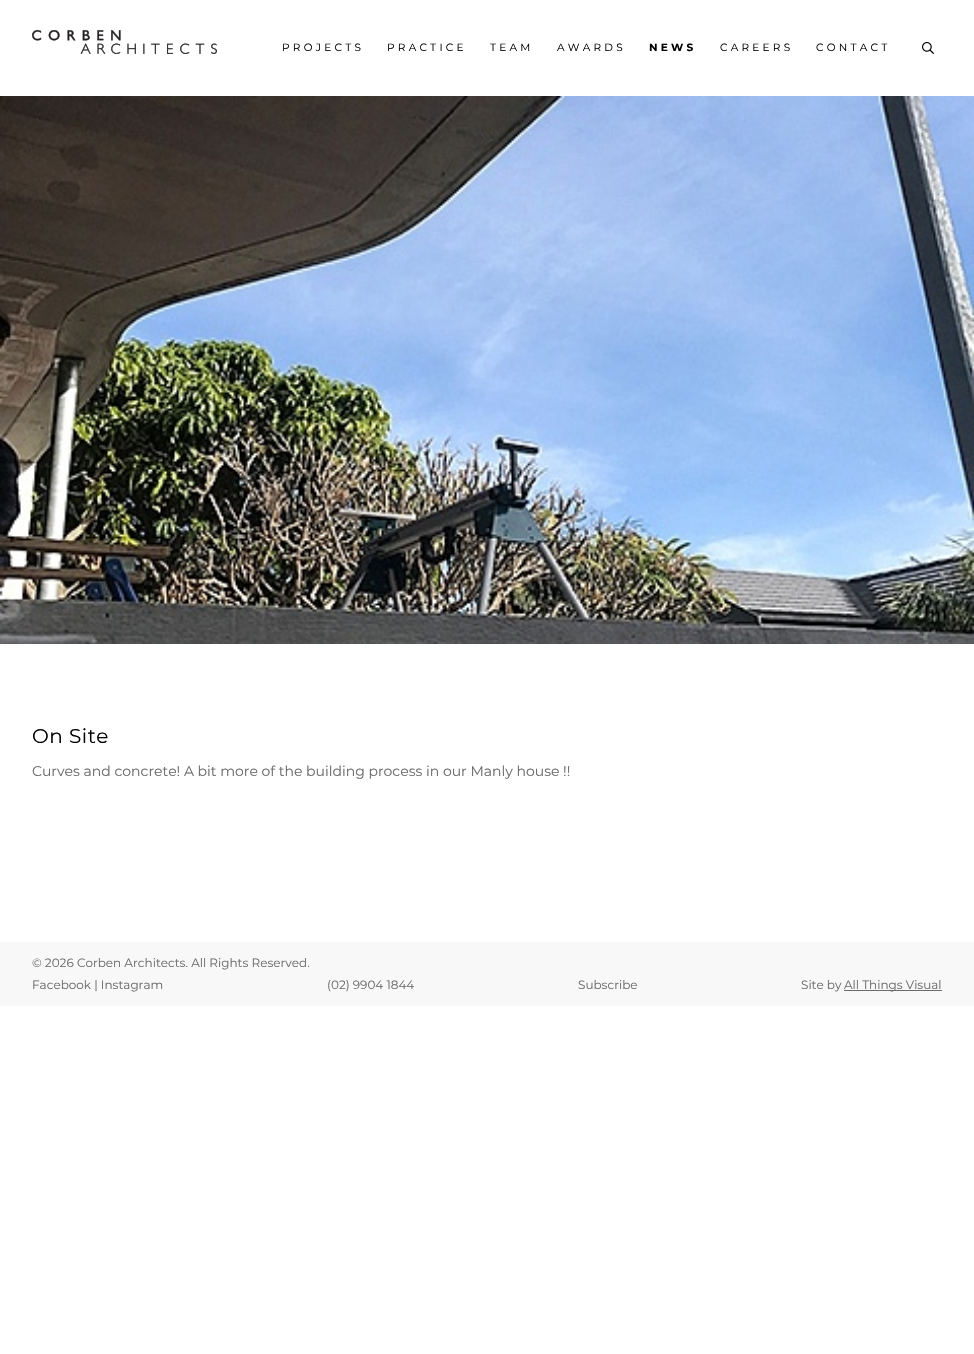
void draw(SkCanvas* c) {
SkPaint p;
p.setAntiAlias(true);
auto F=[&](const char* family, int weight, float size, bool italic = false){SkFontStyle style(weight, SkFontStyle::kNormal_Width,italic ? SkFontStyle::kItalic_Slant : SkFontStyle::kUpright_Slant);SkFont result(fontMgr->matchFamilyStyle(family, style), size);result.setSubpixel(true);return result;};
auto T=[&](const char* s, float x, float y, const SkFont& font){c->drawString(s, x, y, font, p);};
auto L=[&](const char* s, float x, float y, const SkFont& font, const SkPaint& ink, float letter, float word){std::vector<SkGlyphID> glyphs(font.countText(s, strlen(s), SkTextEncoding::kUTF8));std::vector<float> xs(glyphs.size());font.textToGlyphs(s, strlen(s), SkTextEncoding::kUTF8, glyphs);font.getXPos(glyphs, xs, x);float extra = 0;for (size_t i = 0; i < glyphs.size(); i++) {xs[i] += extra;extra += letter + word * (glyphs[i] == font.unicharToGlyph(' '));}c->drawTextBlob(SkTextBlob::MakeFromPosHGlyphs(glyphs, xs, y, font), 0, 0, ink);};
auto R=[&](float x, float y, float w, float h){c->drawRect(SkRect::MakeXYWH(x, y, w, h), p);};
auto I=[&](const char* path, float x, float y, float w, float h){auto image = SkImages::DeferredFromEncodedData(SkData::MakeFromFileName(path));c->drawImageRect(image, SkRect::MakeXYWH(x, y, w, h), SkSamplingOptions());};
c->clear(0xffffffff);
I("1.png",32,30,185,24);
auto f1 = F("Montserrat",400,10.5);
p.setColor(0xff000000);
L("PROJECTS",282,51,f1,p,3.25,0);
L("PRACTICE",387,51,f1,p,3.25,0);
L("TEAM",490,51,f1,p,3.25,0);
L("AWARDS",557,51,f1,p,3.25,0);
auto f2 = F("Montserrat",700,10.5);
L("NEWS",649,51,f2,p,3.25,0);
L("CAREERS",720,51,f1,p,3.25,0);
L("CONTACT",816,51,f1,p,3.25,0);
I("2.png",922,42,12,12);
I("3.png",0,96,974,548);
auto f3 = F("Montserrat",400,20);
L("On Site",32,743,f3,p,.5,0);
auto f4 = F("Montserrat",400,14);
p.setColor(0xff6b6b6b);
T("Curves and concrete! A bit more of the building process in our Manly house !!",32,776,f4);
p.setColor(0xfff8f8f8);
R(0,942,974,64);
auto f5 = F("Montserrat",400,12);
p.setColor(0xff6b6b6b);
T("© 2026 Corben Architects. All Rights Reserved.",32,967,f5);
T("Facebook | Instagram",32,989,f5);
T("(02) 9904 1844",327,989,f5);
T("Subscribe",578,989,f5);
T("Site by",801,989,f5);
R(844,990,98,1);
T("All Things Visual",844,989,f5);
}
